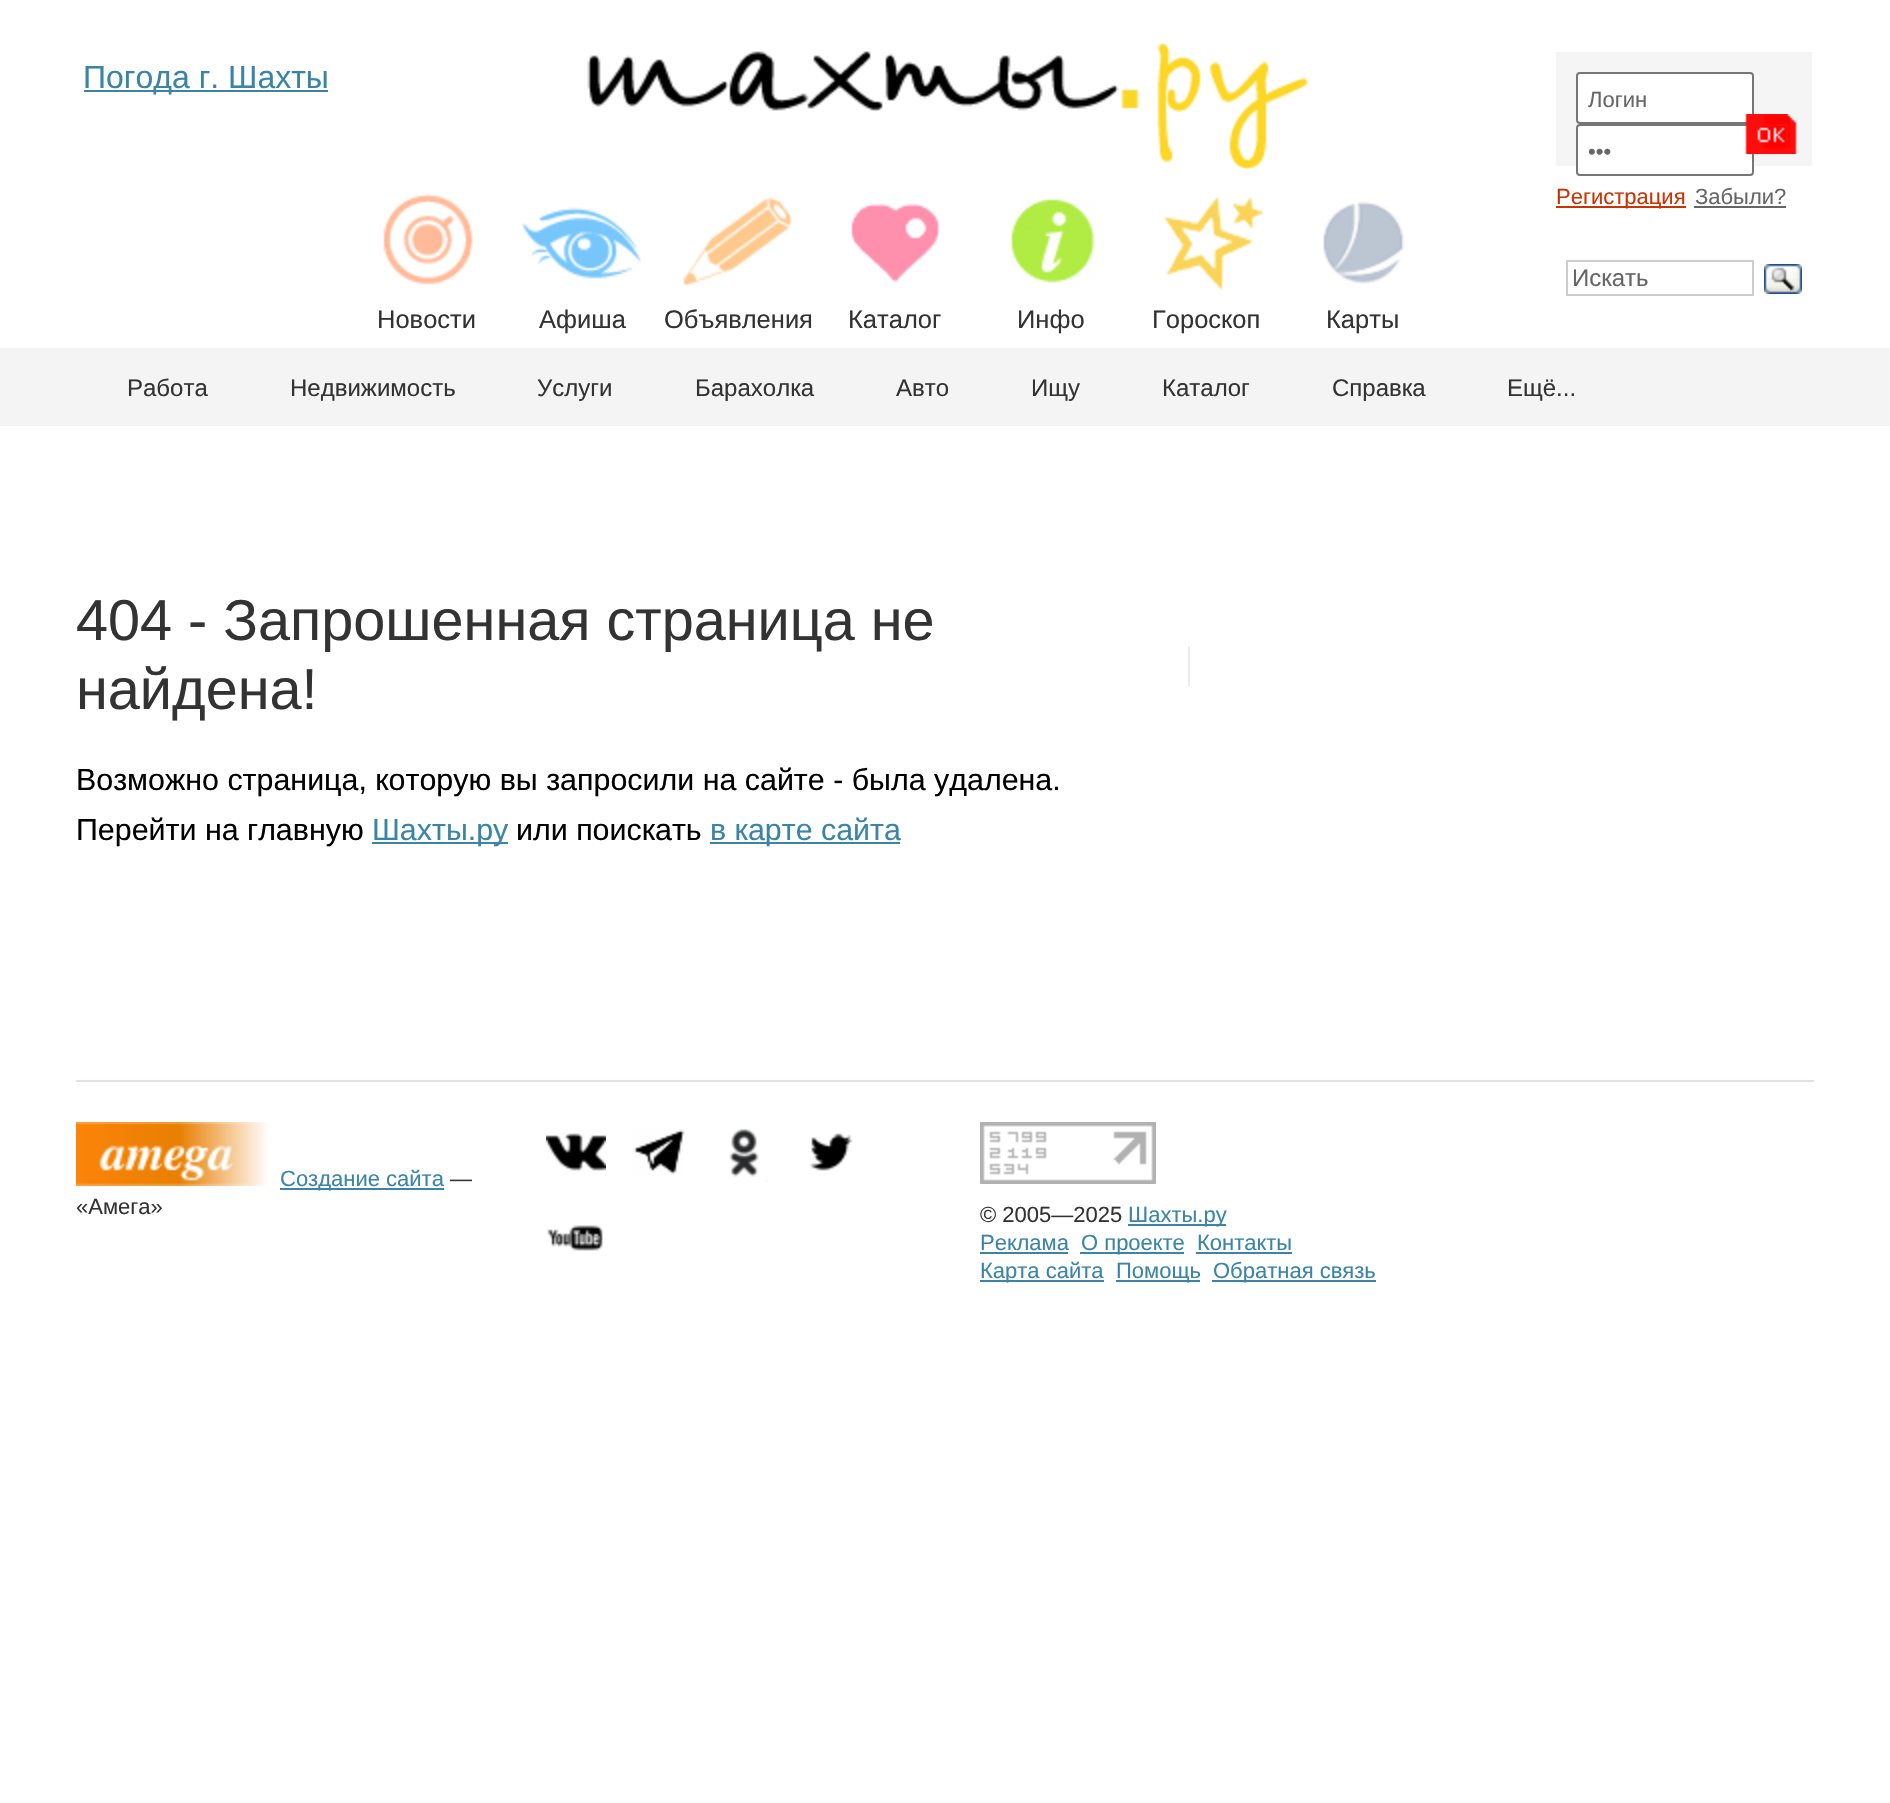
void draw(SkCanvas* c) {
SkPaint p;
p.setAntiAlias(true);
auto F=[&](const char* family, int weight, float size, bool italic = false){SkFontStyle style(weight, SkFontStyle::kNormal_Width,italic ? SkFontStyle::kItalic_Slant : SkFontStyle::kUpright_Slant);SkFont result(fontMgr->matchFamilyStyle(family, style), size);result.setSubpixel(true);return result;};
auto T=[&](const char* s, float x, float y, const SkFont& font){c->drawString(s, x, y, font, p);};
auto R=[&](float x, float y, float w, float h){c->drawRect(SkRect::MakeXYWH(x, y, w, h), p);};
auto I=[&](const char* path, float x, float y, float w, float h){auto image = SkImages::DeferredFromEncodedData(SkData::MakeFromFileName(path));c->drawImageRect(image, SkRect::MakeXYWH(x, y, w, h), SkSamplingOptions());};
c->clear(0xffffffff);
p.setColor(0xff3a84a8);
R(84,90,244,2);
auto f1 = F("Liberation Sans",400,32);
T("Погода г. Шахты",83,88,f1);
p.setColor(0xfff5f5f5);
R(1556,52,256,114);
p.setColor(0xffffffff);
c->drawRoundRect(SkRect::MakeXYWH(1577,73,176,50),3,3,p);
p.setStroke(true);
p.setStrokeWidth(2);
p.setColor(0xff767676);
c->drawRoundRect(SkRect::MakeXYWH(1577,73,176,50),3,3,p);
auto f2 = F("Liberation Sans",400,22);
p.setStroke(false);
p.setColor(0xff666666);
T("Логин",1588,107,f2);
p.setColor(0xffffffff);
c->drawRoundRect(SkRect::MakeXYWH(1577,125,176,50),3,3,p);
p.setStroke(true);
p.setColor(0xff767676);
c->drawRoundRect(SkRect::MakeXYWH(1577,125,176,50),3,3,p);
p.setStroke(false);
p.setColor(0xff666666);
T("•••",1588,159,f2);
I("1.png",1745,114,52,40);
p.setColor(0xffcc3300);
R(1556,206,130,2);
T("Регистрация",1556,204,f2);
p.setColor(0xff666666);
T("Забыли?",1695,204,f2);
R(1694,206,92,2);
p.setStroke(true);
p.setColor(0xffcccccc);
c->drawRect(SkRect::MakeXYWH(1567,261,186,34),p);
auto f3 = F("Liberation Sans",400,24);
p.setStroke(false);
p.setColor(0xff666666);
T("Искать",1572,286,f3);
I("2.png",1764,264,38,30);
I("3.png",587,43,722,126);
I("4.png",383,193,90,92);
auto f4 = F("Liberation Sans",400,25.5);
p.setColor(0xff333333);
T("Новости",377,328,f4);
I("5.png",521,207,121,72);
T("Афиша",539,328,f4);
I("6.png",683,197,110,90);
T("Объявления",664,328,f4);
I("7.png",851,203,89,80);
T("Каталог",848,328,f4);
I("8.png",1011,199,84,84);
T("Инфо",1017,328,f4);
I("9.png",1163,196,102,95);
T("Гороскоп",1152,328,f4);
I("10.png",1323,201,82,83);
T("Карты",1326,328,f4);
p.setColor(0xfff4f4f4);
R(0,348,1890,78);
p.setColor(0xff333333);
T("Работа",127,396,f3);
T("Недвижимость",290,396,f3);
T("Услуги",537,396,f3);
T("Барахолка",695,396,f3);
T("Авто",896,396,f3);
T("Ищу",1031,396,f3);
T("Каталог",1162,396,f3);
T("Справка",1332,396,f3);
T("Ещё...",1507,396,f3);
auto f5 = F("Liberation Sans",400,57.6);
T("404 - Запрошенная страница не",76,640,f5);
T("найдена!",76,709,f5);
auto f6 = F("Liberation Sans",400,30.4);
p.setColor(0xff000000);
T("Возможно страница, которую вы запросили на сайте - была удалена.",76,790,f6);
T("Перейти на главную",76,840,f6);
p.setColor(0xff3a84a8);
R(372,842,136,2);
T("Шахты.ру",372,840,f6);
p.setColor(0xff000000);
T("или поискать",516,840,f6);
p.setColor(0xff3a84a8);
R(710,842,190,2);
T("в карте сайта",710,840,f6);
p.setColor(0xffebebeb);
R(1188,646,2,40);
p.setColor(0xffdfe2e9);
R(76,1080,1738,2);
I("11.png",76,1122,191,64);
p.setColor(0xff3a84a8);
R(280,1188,164,2);
T("Создание сайта",280,1186,f2);
p.setColor(0xff333333);
T("—",450,1186,f2);
T("«Амега»",76,1214,f2);
I("12.png",546,1133,60,38);
I("13.png",633,1129,52,46);
I("14.png",729,1128,39,54);
I("15.png",809,1133,44,38);
I("16.png",547,1225,56,26);
I("17.png",980,1122,176,62);
T("© 2005—2025",980,1222,f2);
p.setColor(0xff3a84a8);
R(1128,1224,98,2);
T("Шахты.ру",1128,1222,f2);
T("Реклама",980,1250,f2);
R(980,1252,88,2);
R(1080,1252,104,2);
T("О проекте",1081,1250,f2);
T("Контакты",1197,1250,f2);
R(1196,1252,96,2);
R(980,1280,124,2);
T("Карта сайта",980,1278,f2);
R(1116,1280,84,2);
T("Помощь",1116,1278,f2);
R(1212,1280,164,2);
T("Обратная связь",1213,1278,f2);
}
